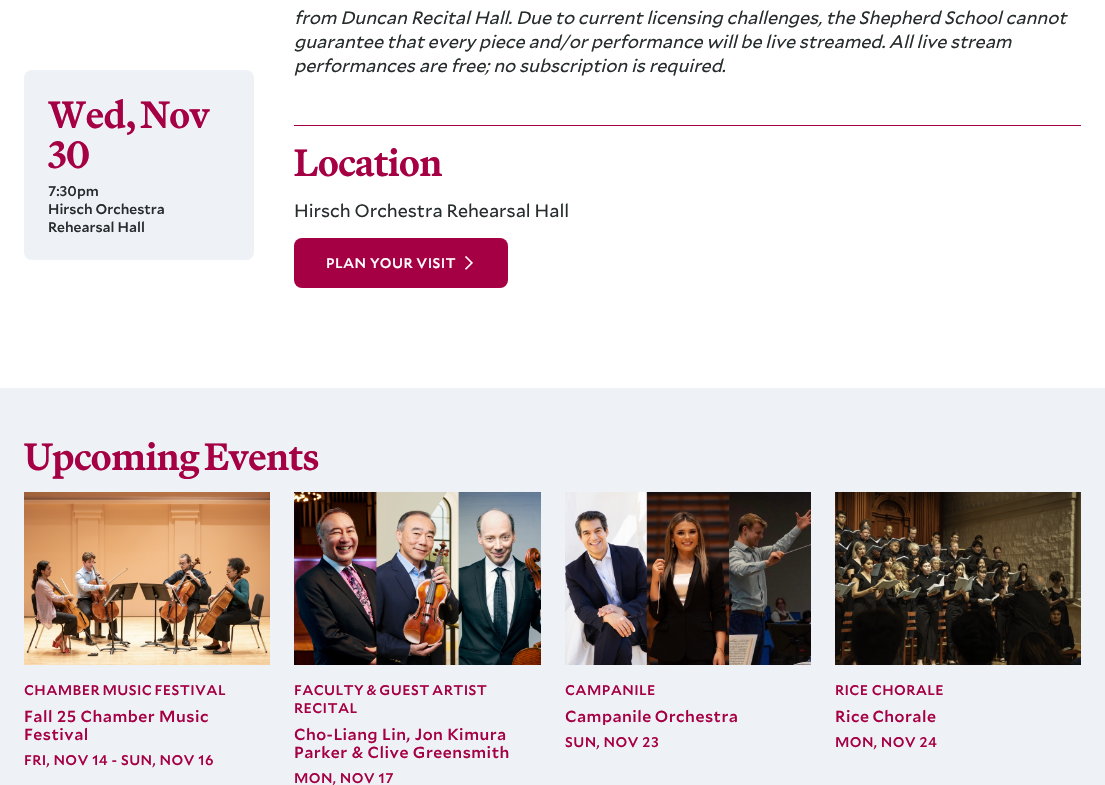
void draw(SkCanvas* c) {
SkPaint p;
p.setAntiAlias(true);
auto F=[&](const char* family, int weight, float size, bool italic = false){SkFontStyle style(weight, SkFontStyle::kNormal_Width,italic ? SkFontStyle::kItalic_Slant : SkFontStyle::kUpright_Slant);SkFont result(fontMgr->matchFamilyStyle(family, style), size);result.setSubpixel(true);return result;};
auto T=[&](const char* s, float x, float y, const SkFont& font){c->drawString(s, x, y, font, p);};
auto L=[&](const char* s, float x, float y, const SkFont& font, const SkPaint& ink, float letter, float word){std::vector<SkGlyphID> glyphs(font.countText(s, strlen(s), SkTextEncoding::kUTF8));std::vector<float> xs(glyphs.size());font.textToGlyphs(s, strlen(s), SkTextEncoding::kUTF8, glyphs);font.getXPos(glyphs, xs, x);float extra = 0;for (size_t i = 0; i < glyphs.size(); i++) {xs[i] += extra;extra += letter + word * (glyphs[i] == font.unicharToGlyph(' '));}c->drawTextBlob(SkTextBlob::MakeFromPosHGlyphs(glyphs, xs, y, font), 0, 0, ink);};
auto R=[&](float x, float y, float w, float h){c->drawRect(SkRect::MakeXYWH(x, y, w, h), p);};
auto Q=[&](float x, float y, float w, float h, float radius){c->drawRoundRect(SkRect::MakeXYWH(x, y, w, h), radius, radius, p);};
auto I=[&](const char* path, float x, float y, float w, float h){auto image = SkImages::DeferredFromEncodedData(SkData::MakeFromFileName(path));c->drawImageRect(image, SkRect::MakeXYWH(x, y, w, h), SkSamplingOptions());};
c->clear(0xffffffff);
p.setColor(0xffeef2f7);
Q(24,70,230,190,8);
auto f1 = F("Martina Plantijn",700,38);
p.setColor(0xffa60044);
L("Wed, Nov",48,128,f1,p,-.4,-2);
L("30",48,168,f1,p,-.4,0);
auto f2 = F("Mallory",500,14);
p.setColor(0xff272d2d);
T("7:30pm",48,196,f2);
T("Hirsch Orchestra",48,214,f2);
T("Rehearsal Hall",48,232,f2);
auto f3 = F("Mallory",400,18,true);
T("from Duncan Recital Hall. Due to current licensing challenges, the Shepherd School cannot",294,24,f3);
L("guarantee that every piece and/or performance will be live streamed. All live stream",294,48,f3,p,0,-.25);
T("performances are free; no subscription is required.",294,72,f3);
p.setColor(0xffa60044);
R(294,125,787,1);
L("Location",294,176,f1,p,-.4,0);
auto f4 = F("Mallory",400,18);
p.setColor(0xff272d2d);
T("Hirsch Orchestra Rehearsal Hall",294,217,f4);
p.setColor(0xffa60044);
Q(294,238,214,50,8);
p.setColor(0xffffffff);
L("PLAN YOUR VISIT",326,268,f2,p,.4,0);
I("1.png",465,256,8,14);
p.setColor(0xffeef2f7);
R(0,388,1105,397);
p.setColor(0xffa60044);
L("Upcoming Events",24,470,f1,p,-.4,-1);
I("2.png",24,492,246,173);
L("CHAMBER MUSIC FESTIVAL",24,695,f2,p,.4,-1);
auto f5 = F("Mallory",500,16);
L("Fall 25 Chamber Music",24,722,f5,p,.5,0);
L("Festival",24,740,f5,p,.5,0);
L("FRI, NOV 14 - SUN, NOV 16",24,765,f2,p,.4,0);
I("3.png",294,492,247,173);
L("FACULTY & GUEST ARTIST",294,695,f2,p,.4,-1);
L("RECITAL",294,713,f2,p,.4,0);
L("Cho-Liang Lin, Jon Kimura",294,740,f5,p,.5,0);
L("Parker & Clive Greensmith",294,758,f5,p,.5,0);
L("MON, NOV 17",294,783,f2,p,.4,0);
I("4.png",565,492,246,173);
L("CAMPANILE",565,695,f2,p,.4,0);
L("Campanile Orchestra",565,722,f5,p,.5,-1);
L("SUN, NOV 23",565,747,f2,p,.4,0);
I("5.png",835,492,246,173);
L("RICE CHORALE",835,695,f2,p,.4,0);
L("Rice Chorale",835,722,f5,p,.5,-1);
L("MON, NOV 24",835,747,f2,p,.4,0);
}
